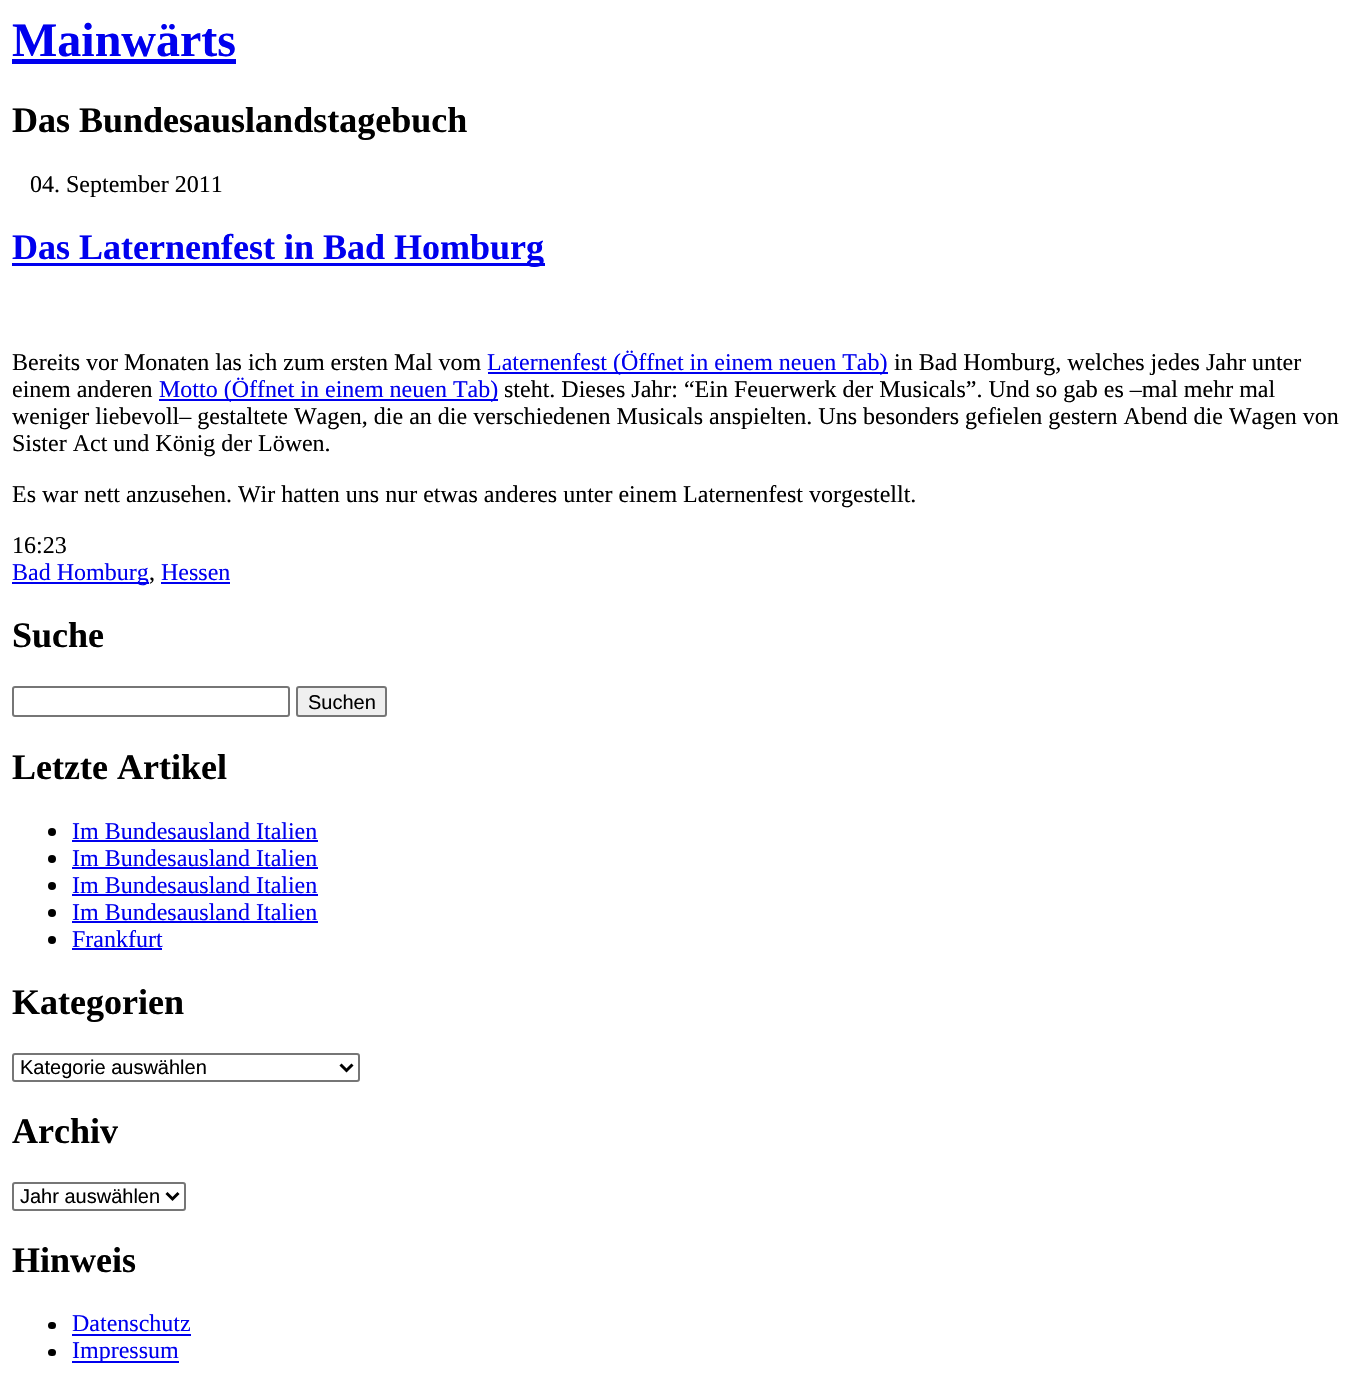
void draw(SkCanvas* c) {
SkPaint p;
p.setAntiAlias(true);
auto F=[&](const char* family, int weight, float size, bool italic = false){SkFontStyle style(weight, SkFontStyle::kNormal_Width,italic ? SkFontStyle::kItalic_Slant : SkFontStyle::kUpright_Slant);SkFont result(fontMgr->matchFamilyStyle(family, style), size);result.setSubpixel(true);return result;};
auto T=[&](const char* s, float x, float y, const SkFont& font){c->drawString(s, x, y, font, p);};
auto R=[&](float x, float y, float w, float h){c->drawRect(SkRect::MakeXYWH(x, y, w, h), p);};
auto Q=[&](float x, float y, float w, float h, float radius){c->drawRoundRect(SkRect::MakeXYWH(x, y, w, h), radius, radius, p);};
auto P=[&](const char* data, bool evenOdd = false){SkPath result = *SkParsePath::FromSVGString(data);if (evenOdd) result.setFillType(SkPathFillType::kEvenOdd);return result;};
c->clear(0xffffffff);
auto f1 = F("Liberation Serif",700,48);
p.setColor(0xff0000ee);
T("Mainwärts",12,56,f1);
R(12,59,224,5);
auto f2 = F("Liberation Serif",700,36);
p.setColor(0xff000000);
T("Das Bundesauslandstagebuch",12,132,f2);
auto f3 = F("Liberation Serif",400,24);
T("04. September 2011",30,192,f3);
p.setColor(0xff0000ee);
R(12,263,533,3);
T("Das Laternenfest in Bad Homburg",12,259,f2);
p.setColor(0xff000000);
T("Bereits vor Monaten las ich zum ersten Mal vom",12,370,f3);
p.setColor(0xff0000ee);
R(488,372,400,2);
T("Laternenfest (Öffnet in einem neuen Tab)",487,370,f3);
p.setColor(0xff000000);
T("in Bad Homburg, welches jedes Jahr unter",894,370,f3);
T("einem anderen",12,397,f3);
p.setColor(0xff0000ee);
R(159,399,339,2);
T("Motto (Öffnet in einem neuen Tab)",159,397,f3);
p.setColor(0xff000000);
T("steht. Dieses Jahr: “Ein Feuerwerk der Musicals”. Und so gab es –mal mehr mal",504,397,f3);
T("weniger liebevoll– gestaltete Wagen, die an die verschiedenen Musicals anspielten. Uns besonders gefielen gestern Abend die Wagen von",12,424,f3);
T("Sister Act und König der Löwen.",12,451,f3);
T("Es war nett anzusehen. Wir hatten uns nur etwas anderes unter einem Laternenfest vorgestellt.",12,502,f3);
T("16:23",12,553,f3);
p.setColor(0xff0000ee);
R(12,582,137,2);
T("Bad Homburg",12,580,f3);
p.setColor(0xff000000);
T(",",149,580,f3);
p.setColor(0xff0000ee);
T("Hessen",161,580,f3);
R(161,582,69,2);
p.setColor(0xff000000);
T("Suche",12,647,f2);
p.setStroke(true);
p.setStrokeWidth(2);
p.setColor(0xff767676);
c->drawRoundRect(SkRect::MakeXYWH(13,687,276,29),2,2,p);
p.setStroke(false);
p.setColor(0xffefefef);
c->drawRoundRect(SkRect::MakeXYWH(297,687,89,29),2,2,p);
p.setStroke(true);
p.setColor(0xff767676);
c->drawRoundRect(SkRect::MakeXYWH(297,687,89,29),2,2,p);
auto f4 = F("Liberation Sans",400,20);
p.setStroke(false);
p.setColor(0xff000000);
T("Suchen",308,709,f4);
T("Letzte Artikel",12,779,f2);
c->drawCircle(52,832,4,p);
p.setColor(0xff0000ee);
T("Im Bundesausland Italien",72,839,f3);
R(72,840,246,2);
p.setColor(0xff000000);
c->drawCircle(52,859,4,p);
p.setColor(0xff0000ee);
T("Im Bundesausland Italien",72,866,f3);
R(72,867,246,2);
p.setColor(0xff000000);
c->drawCircle(52,886,4,p);
p.setColor(0xff0000ee);
T("Im Bundesausland Italien",72,893,f3);
R(72,894,246,2);
p.setColor(0xff000000);
c->drawCircle(52,913,4,p);
p.setColor(0xff0000ee);
T("Im Bundesausland Italien",72,920,f3);
R(72,921,246,2);
p.setColor(0xff000000);
c->drawCircle(52,940,4,p);
p.setColor(0xff0000ee);
T("Frankfurt",72,947,f3);
R(72,948,90,2);
p.setColor(0xff000000);
T("Kategorien",12,1014,f2);
p.setStroke(true);
p.setColor(0xff767676);
c->drawRoundRect(SkRect::MakeXYWH(13,1054,346,27),2,2,p);
p.setStrokeWidth(3);
p.setColor(0xff000000);
c->drawPath(P("M340.5 1064.5l6 6l6-6"),p);
p.setStroke(false);
T("Kategorie auswählen",20,1074,f4);
T("Archiv",12,1143,f2);
p.setStroke(true);
p.setStrokeWidth(2);
p.setColor(0xff767676);
c->drawRoundRect(SkRect::MakeXYWH(13,1183,172,27),2,2,p);
p.setStrokeWidth(3);
p.setColor(0xff000000);
c->drawPath(P("M166.5 1193l6 6l6-6"),p);
p.setStroke(false);
T("Jahr auswählen",20,1203,f4);
T("Hinweis",12,1272,f2);
Q(48,1322,8,7,3.5);
p.setColor(0xff0000ee);
T("Datenschutz",72,1331,f3);
R(72,1334,119,2);
p.setColor(0xff000000);
Q(48,1349,8,7,3.5);
p.setColor(0xff0000ee);
R(72,1361,107,2);
T("Impressum",72,1358,f3);
}
